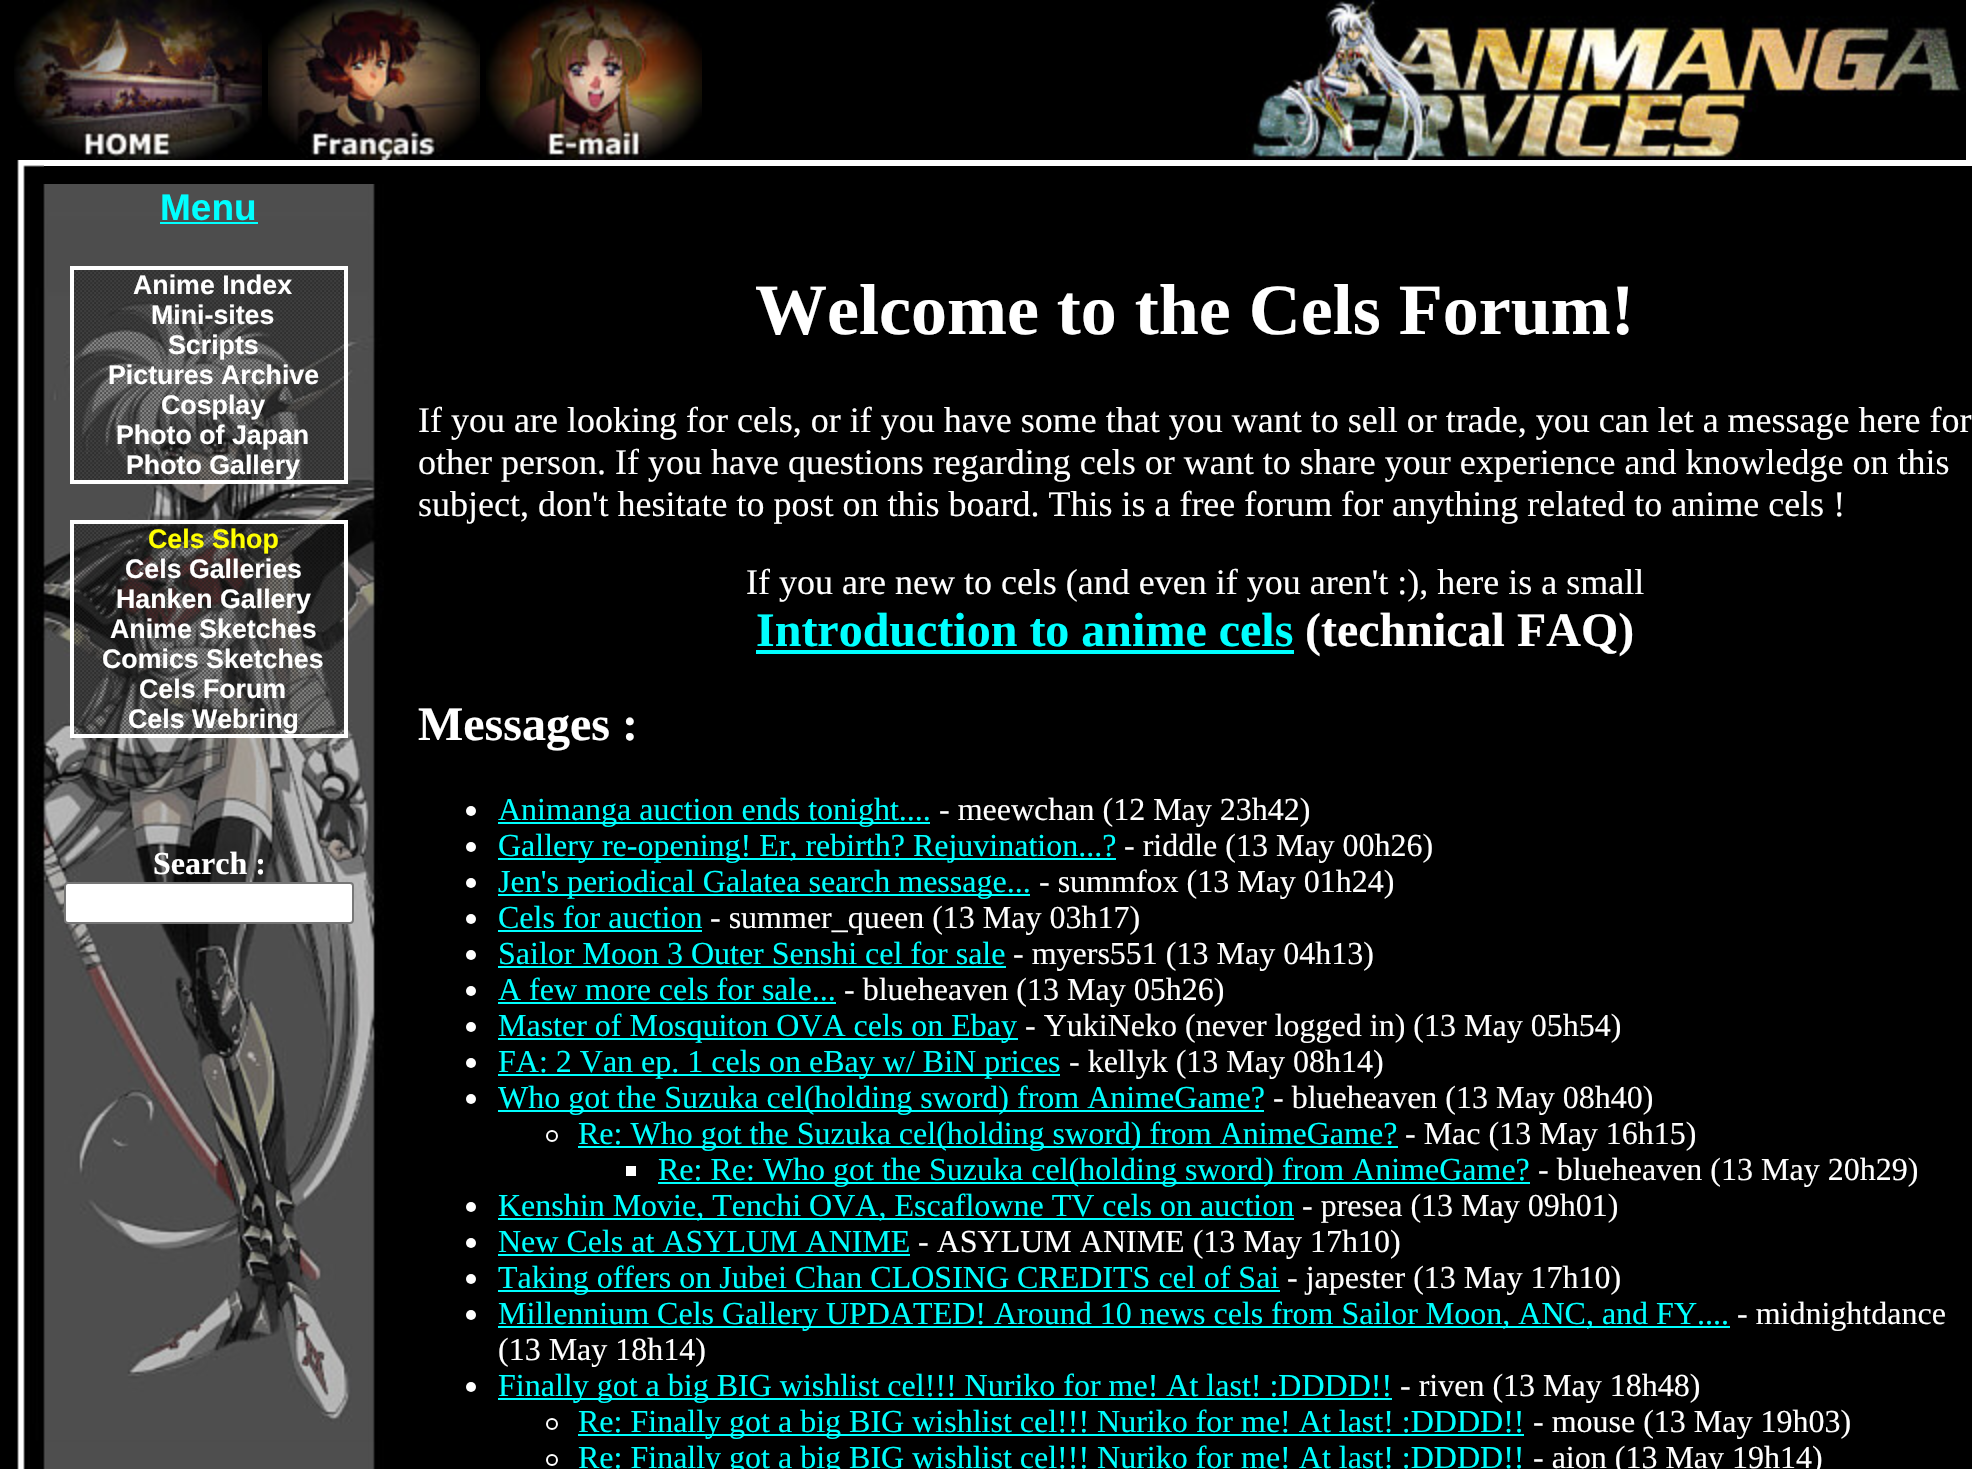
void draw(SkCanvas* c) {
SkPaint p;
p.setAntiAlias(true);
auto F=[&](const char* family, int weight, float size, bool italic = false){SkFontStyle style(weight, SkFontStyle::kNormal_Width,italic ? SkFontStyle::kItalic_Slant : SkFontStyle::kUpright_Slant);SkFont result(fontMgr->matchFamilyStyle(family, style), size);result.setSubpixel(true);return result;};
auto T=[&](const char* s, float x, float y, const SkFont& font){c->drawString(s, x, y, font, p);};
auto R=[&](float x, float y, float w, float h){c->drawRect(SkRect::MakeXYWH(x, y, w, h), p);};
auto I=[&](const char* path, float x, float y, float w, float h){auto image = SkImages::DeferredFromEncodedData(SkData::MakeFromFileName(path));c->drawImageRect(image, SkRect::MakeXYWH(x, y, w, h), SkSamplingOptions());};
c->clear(0xff000000);
I("1.png",17,184,367,1285);
I("2.png",14,0,248,160);
I("3.png",268,0,212,160);
I("4.png",486,0,216,160);
I("5.png",1246,0,720,160);
p.setColor(0xffffffff);
R(1966,0,6,160);
I("6.png",17,160,27,24);
R(44,160,1928,6);
auto f1 = F("Liberation Sans",700,37);
p.setColor(0xff00ffff);
T("Menu",160,220,f1);
R(160,222,98,2);
I("7.png",74,270,270,210);
p.setStroke(true);
p.setStrokeWidth(4);
p.setColor(0xffffffff);
c->drawRect(SkRect::MakeXYWH(72,268,274,214),p);
auto f2 = F("Liberation Sans",700,26.75);
p.setStroke(false);
T("Anime Index",133,294,f2);
T("Mini-sites",151,324,f2);
T("Scripts",168,354,f2);
T("Pictures Archive",108,384,f2);
T("Cosplay",161,414,f2);
T("Photo of Japan",116,444,f2);
T("Photo Gallery",126,474,f2);
I("8.png",74,524,270,210);
p.setStroke(true);
c->drawRect(SkRect::MakeXYWH(72,522,274,214),p);
p.setStroke(false);
p.setColor(0xffffff00);
T("Cels Shop",148,548,f2);
p.setColor(0xffffffff);
T("Cels Galleries",125,578,f2);
T("Hanken Gallery",116,608,f2);
T("Anime Sketches",110,638,f2);
T("Comics Sketches",102,668,f2);
T("Cels Forum",139,698,f2);
T("Cels Webring",128,728,f2);
auto f3 = F("Liberation Serif",700,32);
T("Search :",153,874,f3);
c->drawRoundRect(SkRect::MakeXYWH(65,883,288,40),3,3,p);
p.setStroke(true);
p.setStrokeWidth(2);
p.setColor(0xff767676);
c->drawRoundRect(SkRect::MakeXYWH(65,883,288,40),3,3,p);
auto f4 = F("Liberation Serif",700,72);
p.setStroke(false);
p.setColor(0xffffffff);
T("Welcome to the Cels Forum!",755,334,f4);
auto f5 = F("Liberation Serif",400,36);
T("If you are looking for cels, or if you have some that you want to sell or trade, you can let a message here for",418,432,f5);
T("other person. If you have questions regarding cels or want to share your experience and knowledge on this",418,474,f5);
T("subject, don't hesitate to post on this board. This is a free forum for anything related to anime cels !",418,516,f5);
T("If you are new to cels (and even if you aren't :), here is a small",746,594,f5);
auto f6 = F("Liberation Serif",700,48);
p.setColor(0xff00ffff);
T("Introduction to anime cels",756,646,f6);
R(756,650,538,4);
p.setColor(0xffffffff);
T("(technical FAQ)",1305,646,f6);
T("Messages :",418,740,f6);
c->drawCircle(471,811,5,p);
p.setColor(0xff00ffff);
R(498,822,432,2);
auto f7 = F("Liberation Serif",400,32);
T("Animanga auction ends tonight....",498,820,f7);
p.setColor(0xffffffff);
T("- meewchan (12 May 23h42)",939,820,f7);
c->drawCircle(471,847,5,p);
p.setColor(0xff00ffff);
R(498,858,618,2);
T("Gallery re-opening! Er, rebirth? Rejuvination...?",498,856,f7);
p.setColor(0xffffffff);
T("- riddle (13 May 00h26)",1124,856,f7);
c->drawCircle(471,883,5,p);
p.setColor(0xff00ffff);
R(498,894,532,2);
T("Jen's periodical Galatea search message...",498,892,f7);
p.setColor(0xffffffff);
T("- summfox (13 May 01h24)",1039,892,f7);
c->drawCircle(471,919,5,p);
p.setColor(0xff00ffff);
T("Cels for auction",498,928,f7);
R(498,930,204,2);
p.setColor(0xffffffff);
T("- summer_queen (13 May 03h17)",710,928,f7);
c->drawCircle(471,955,5,p);
p.setColor(0xff00ffff);
T("Sailor Moon 3 Outer Senshi cel for sale",498,964,f7);
R(498,966,508,2);
p.setColor(0xffffffff);
T("- myers551 (13 May 04h13)",1013,964,f7);
c->drawCircle(471,991,5,p);
p.setColor(0xff00ffff);
T("A few more cels for sale...",498,1000,f7);
R(498,1002,338,2);
p.setColor(0xffffffff);
T("- blueheaven (13 May 05h26)",844,1000,f7);
c->drawCircle(471,1027,5,p);
p.setColor(0xff00ffff);
R(498,1038,520,2);
T("Master of Mosquiton OVA cels on Ebay",498,1036,f7);
p.setColor(0xffffffff);
T("- YukiNeko (never logged in) (13 May 05h54)",1025,1036,f7);
c->drawCircle(471,1063,5,p);
p.setColor(0xff00ffff);
R(498,1074,562,2);
T("FA: 2 Van ep. 1 cels on eBay w/ BiN prices",498,1072,f7);
p.setColor(0xffffffff);
T("- kellyk (13 May 08h14)",1069,1072,f7);
c->drawCircle(471,1099,5,p);
p.setColor(0xff00ffff);
R(498,1110,766,2);
T("Who got the Suzuka cel(holding sword) from AnimeGame?",498,1108,f7);
p.setColor(0xffffffff);
T("- blueheaven (13 May 08h40)",1273,1108,f7);
p.setStroke(true);
c->drawCircle(552,1136,5,p);
p.setStroke(false);
p.setColor(0xff00ffff);
R(578,1146,820,2);
T("Re: Who got the Suzuka cel(holding sword) from AnimeGame?",578,1144,f7);
p.setColor(0xffffffff);
T("- Mac (13 May 16h15)",1405,1144,f7);
R(626,1166,10,10);
p.setColor(0xff00ffff);
R(658,1182,872,2);
T("Re: Re: Who got the Suzuka cel(holding sword) from AnimeGame?",658,1180,f7);
p.setColor(0xffffffff);
T("- blueheaven (13 May 20h29)",1538,1180,f7);
c->drawCircle(471,1207,5,p);
p.setColor(0xff00ffff);
R(498,1218,796,2);
T("Kenshin Movie, Tenchi OVA, Escaflowne TV cels on auction",498,1216,f7);
p.setColor(0xffffffff);
T("- presea (13 May 09h01)",1302,1216,f7);
c->drawCircle(471,1243,5,p);
p.setColor(0xff00ffff);
T("New Cels at ASYLUM ANIME",498,1252,f7);
R(498,1254,412,2);
p.setColor(0xffffffff);
T("- ASYLUM ANIME (13 May 17h10)",918,1252,f7);
c->drawCircle(471,1279,5,p);
p.setColor(0xff00ffff);
R(498,1290,782,2);
T("Taking offers on Jubei Chan CLOSING CREDITS cel of Sai",498,1288,f7);
p.setColor(0xffffffff);
T("- japester (13 May 17h10)",1287,1288,f7);
c->drawCircle(471,1315,5,p);
p.setColor(0xff00ffff);
R(498,1326,1232,2);
T("Millennium Cels Gallery UPDATED! Around 10 news cels from Sailor Moon, ANC, and FY....",498,1324,f7);
p.setColor(0xffffffff);
T("- midnightdance",1737,1324,f7);
T("(13 May 18h14)",498,1360,f7);
c->drawCircle(471,1387,5,p);
p.setColor(0xff00ffff);
R(498,1398,894,2);
T("Finally got a big BIG wishlist cel!!! Nuriko for me! At last! :DDDD!!",498,1396,f7);
p.setColor(0xffffffff);
T("- riven (13 May 18h48)",1400,1396,f7);
p.setStroke(true);
c->drawCircle(552,1424,5,p);
p.setStroke(false);
p.setColor(0xff00ffff);
R(578,1434,946,2);
T("Re: Finally got a big BIG wishlist cel!!! Nuriko for me! At last! :DDDD!!",578,1432,f7);
p.setColor(0xffffffff);
T("- mouse (13 May 19h03)",1533,1432,f7);
p.setStroke(true);
c->drawCircle(552,1460,5,p);
p.setStroke(false);
p.setColor(0xff00ffff);
T("Re: Finally got a big BIG wishlist cel!!! Nuriko for me! At last! :DDDD!!",578,1468,f7);
p.setColor(0xffffffff);
T("- aion (13 May 19h14)",1533,1468,f7);
}
